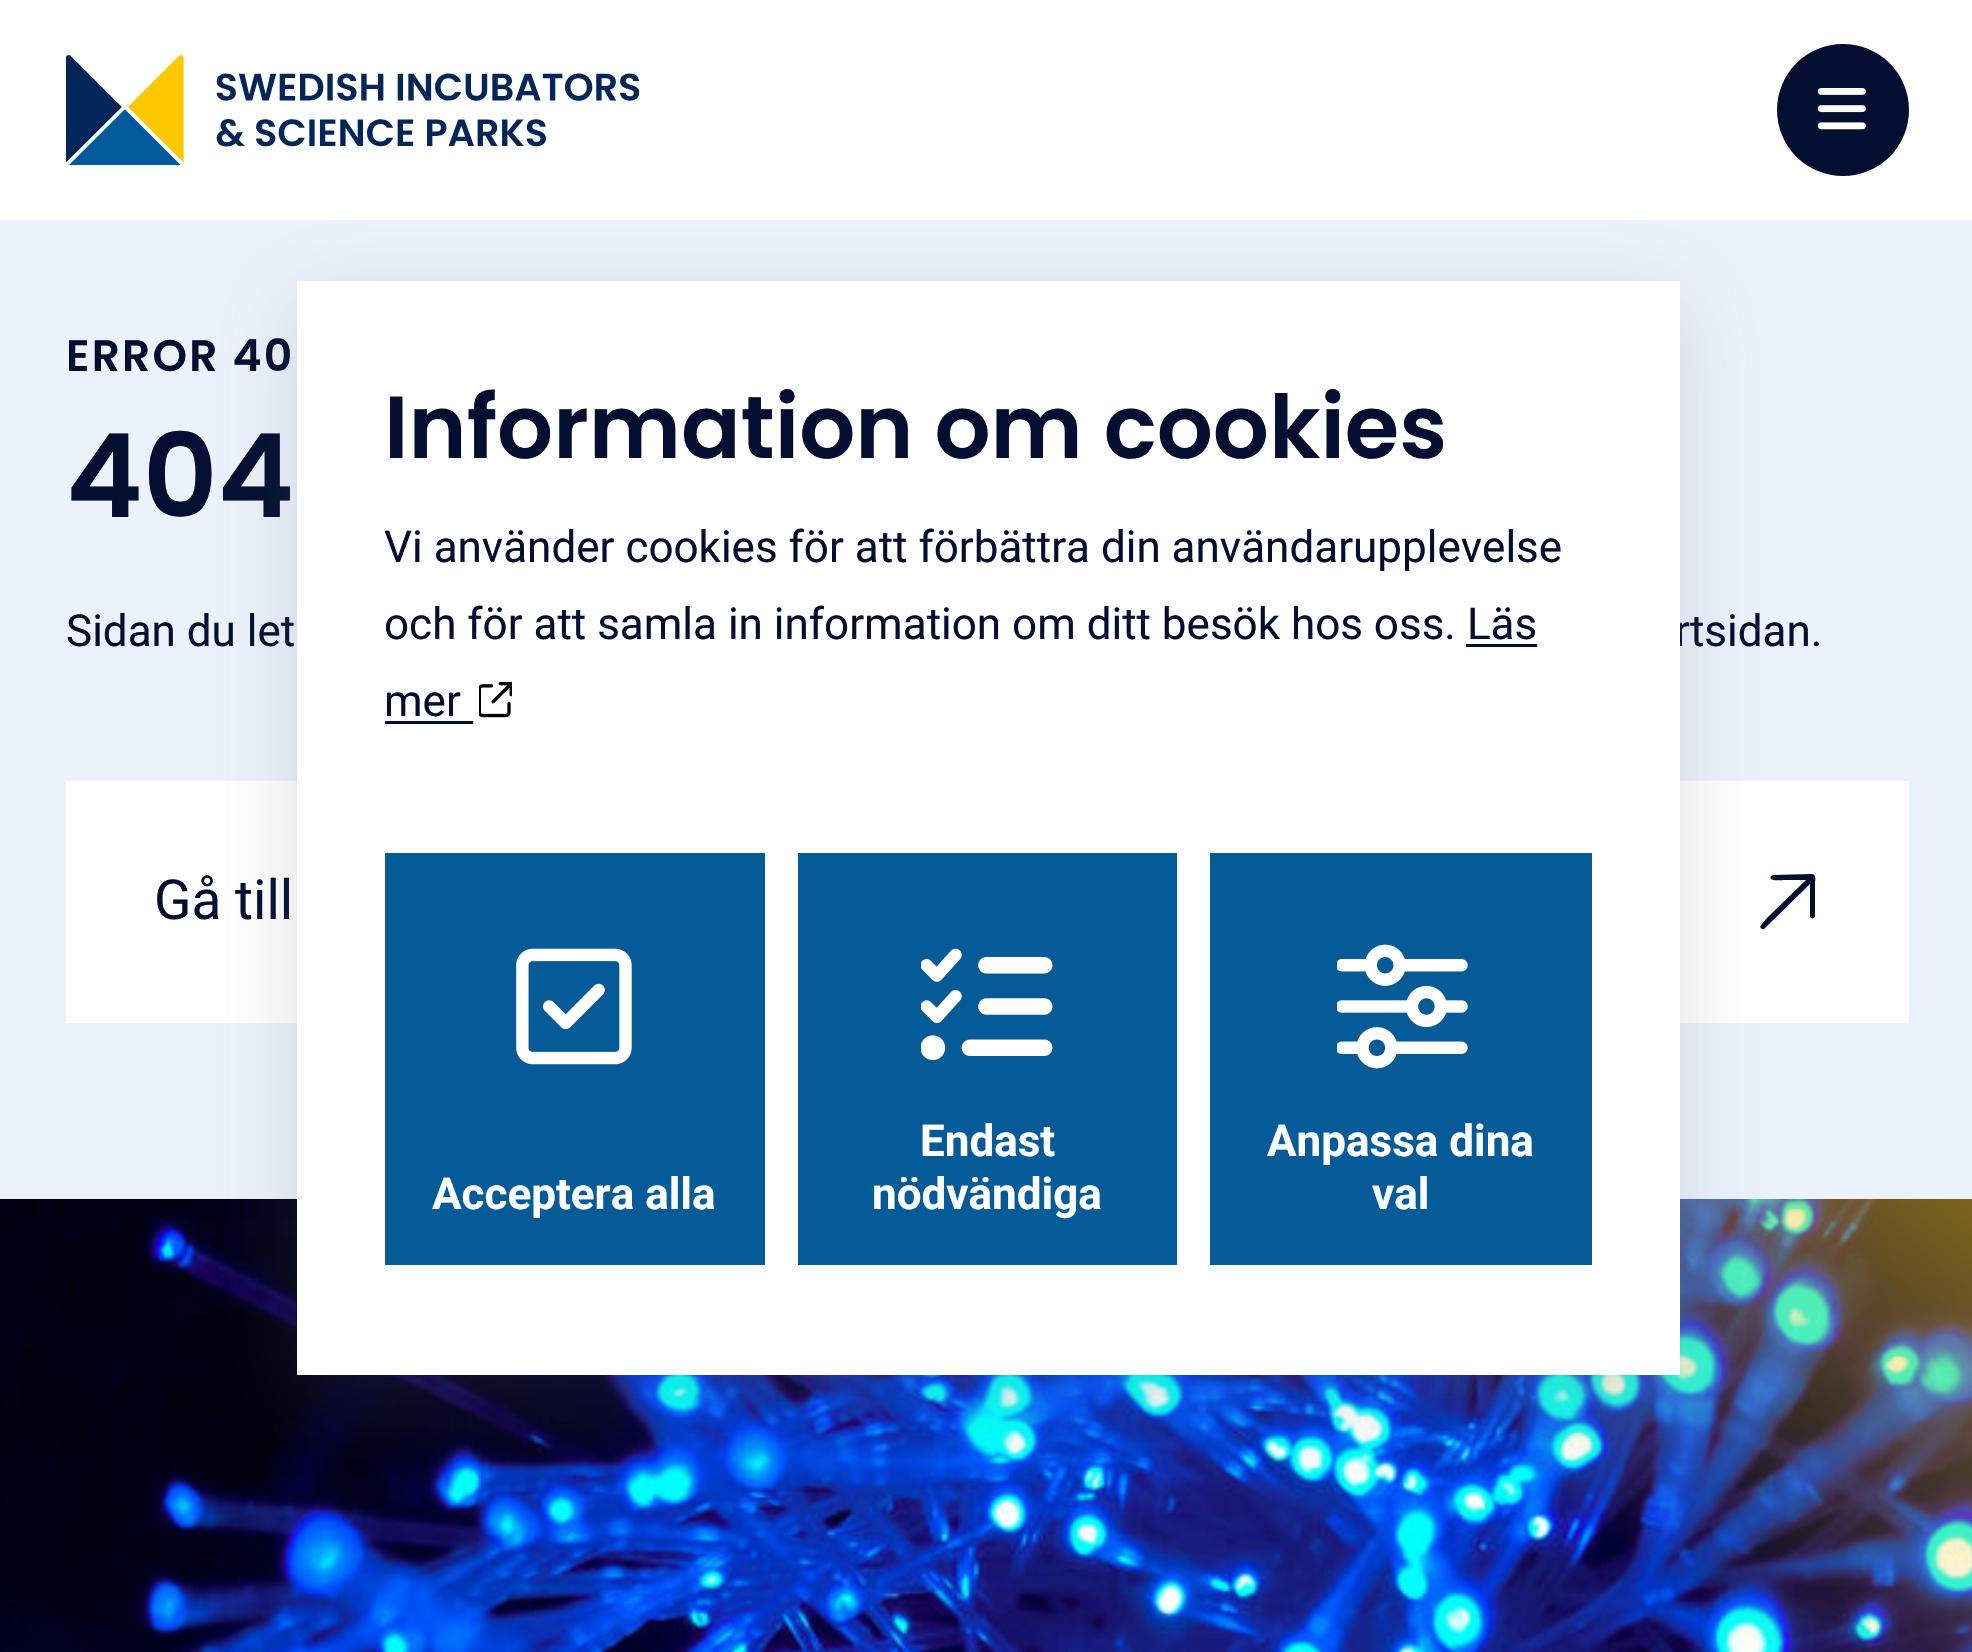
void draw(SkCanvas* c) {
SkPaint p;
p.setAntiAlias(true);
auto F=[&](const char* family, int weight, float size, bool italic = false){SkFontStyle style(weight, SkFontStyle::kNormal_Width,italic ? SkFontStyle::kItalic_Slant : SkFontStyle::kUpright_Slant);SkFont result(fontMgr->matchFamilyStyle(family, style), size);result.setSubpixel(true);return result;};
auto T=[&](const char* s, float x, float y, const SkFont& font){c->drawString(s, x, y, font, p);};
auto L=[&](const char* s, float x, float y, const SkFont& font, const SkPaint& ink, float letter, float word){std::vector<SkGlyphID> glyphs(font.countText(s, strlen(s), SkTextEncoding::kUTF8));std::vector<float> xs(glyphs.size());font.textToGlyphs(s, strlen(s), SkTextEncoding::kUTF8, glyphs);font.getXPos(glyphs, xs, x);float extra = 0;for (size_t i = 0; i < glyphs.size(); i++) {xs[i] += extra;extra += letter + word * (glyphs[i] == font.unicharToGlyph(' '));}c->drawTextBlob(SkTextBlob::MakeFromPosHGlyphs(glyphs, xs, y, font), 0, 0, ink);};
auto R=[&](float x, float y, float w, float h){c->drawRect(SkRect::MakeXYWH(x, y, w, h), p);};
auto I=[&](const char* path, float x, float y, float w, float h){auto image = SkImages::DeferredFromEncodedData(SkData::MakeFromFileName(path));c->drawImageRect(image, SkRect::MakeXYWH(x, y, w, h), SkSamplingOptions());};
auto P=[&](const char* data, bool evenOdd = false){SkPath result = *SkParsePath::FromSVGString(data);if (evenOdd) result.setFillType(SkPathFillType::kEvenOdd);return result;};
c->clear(0xffffffff);
I("1.png",66,55,574,110);
p.setColor(0xff030e30);
c->drawCircle(1843,110,66,p);
I("2.png",1817,88,49,42);
p.setColor(0xffebf2fb);
R(0,220,1972,979);
auto f1 = F("Poppins",600,44);
p.setColor(0xff030e30);
L("ERROR 40",66,371,f1,p,2.25,0);
auto f2 = F("Poppins",600,116);
T("404",66,517,f2);
auto f3 = F("Roboto",400,44);
T("Sidan du let",66,646,f3);
T("rtsidan.",1675,646,f3);
p.setColor(0xffffffff);
R(66,781,1843,242);
auto f4 = F("Roboto",400,55);
p.setColor(0xff030e30);
T("Gå till",154,919,f4);
c->drawPath(P("M1812 874c5 1 3 7 3 10v33c-1 2-5 2-5-1v-32l-46 45h-2c-5-2 2-7 6-12l38-37h-22c0 0-17 2-13-4l2-1z"),p);
I("3.png",0,1199,1972,453);
p.setColor(0x3364646f);
p.setMaskFilter(SkMaskFilter::MakeBlur(kNormal_SkBlurStyle, 40));
c->drawRect(SkRect::MakeXYWH(297,300,1383,1094),p);
p.setMaskFilter(nullptr);
p.setColor(0xffffffff);
R(297,281,1383,1094);
auto f5 = F("Poppins",600,88);
p.setColor(0xff030e30);
T("Information om cookies",384,458,f5);
T("Vi använder cookies för att förbättra din användarupplevelse",384,562,f3);
T("och för att samla in information om ditt besök hos oss. Läs",384,639,f3);
T("mer",384,716,f3);
R(1466,644,71,3);
R(385,721,88,3);
I("4.png",479,682,33,36);
p.setColor(0xff055a98);
R(385,853,380,412);
I("5.png",516,948,116,117);
auto f6 = F("Roboto",700,44);
p.setColor(0xffffffff);
T("Acceptera alla",432,1209,f6);
p.setColor(0xff055a98);
R(798,853,379,412);
I("6.png",921,948,132,113);
p.setColor(0xffffffff);
T("Endast",920,1156,f6);
T("nödvändiga",872,1209,f6);
p.setColor(0xff055a98);
R(1210,853,382,412);
I("7.png",1337,944,131,125);
p.setColor(0xffffffff);
T("Anpassa dina",1267,1156,f6);
T("val",1372,1209,f6);
}
